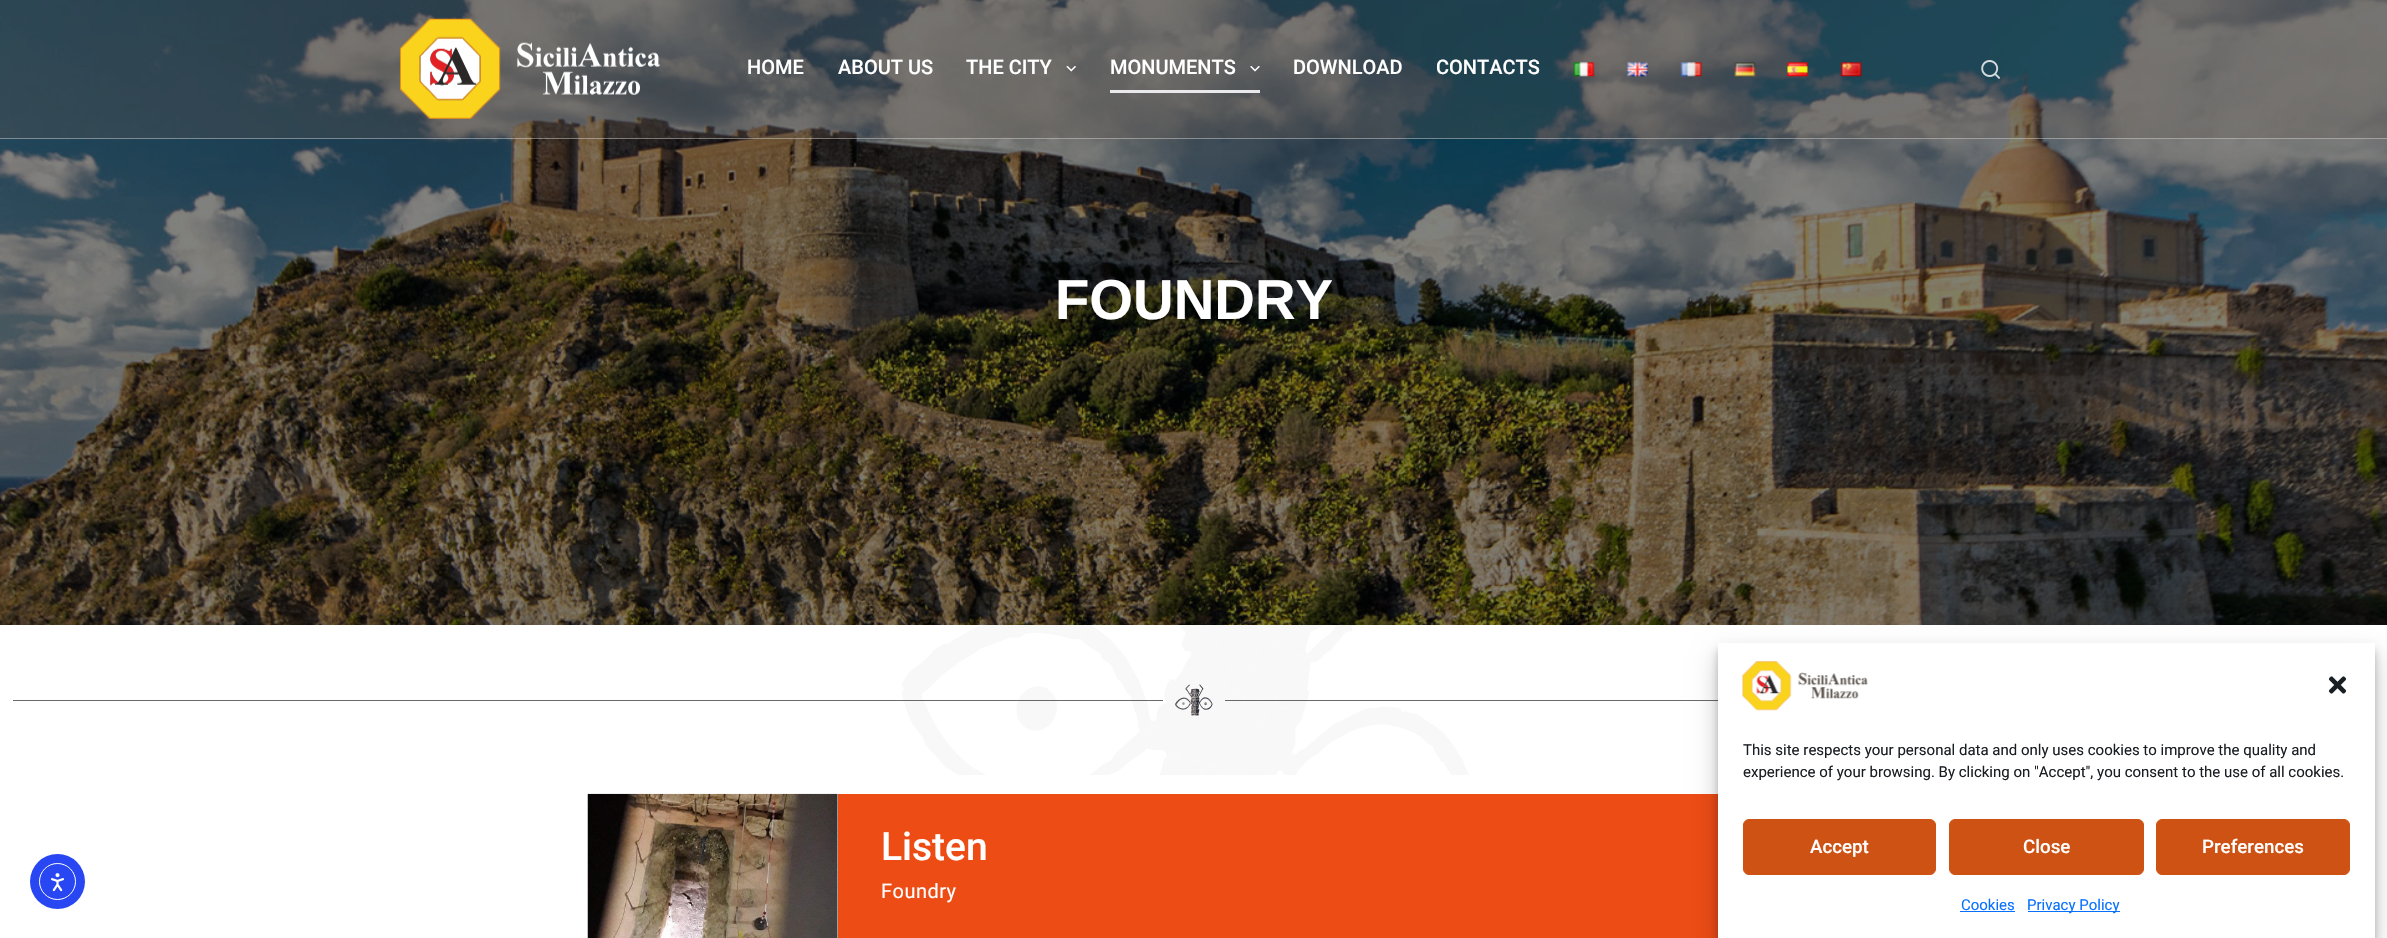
void draw(SkCanvas* c) {
SkPaint p;
p.setAntiAlias(true);
auto F=[&](const char* family, int weight, float size, bool italic = false){SkFontStyle style(weight, SkFontStyle::kNormal_Width,italic ? SkFontStyle::kItalic_Slant : SkFontStyle::kUpright_Slant);SkFont result(fontMgr->matchFamilyStyle(family, style), size);result.setSubpixel(true);return result;};
auto T=[&](const char* s, float x, float y, const SkFont& font){c->drawString(s, x, y, font, p);};
auto L=[&](const char* s, float x, float y, const SkFont& font, const SkPaint& ink, float letter, float word){std::vector<SkGlyphID> glyphs(font.countText(s, strlen(s), SkTextEncoding::kUTF8));std::vector<float> xs(glyphs.size());font.textToGlyphs(s, strlen(s), SkTextEncoding::kUTF8, glyphs);font.getXPos(glyphs, xs, x);float extra = 0;for (size_t i = 0; i < glyphs.size(); i++) {xs[i] += extra;extra += letter + word * (glyphs[i] == font.unicharToGlyph(' '));}c->drawTextBlob(SkTextBlob::MakeFromPosHGlyphs(glyphs, xs, y, font), 0, 0, ink);};
auto R=[&](float x, float y, float w, float h){c->drawRect(SkRect::MakeXYWH(x, y, w, h), p);};
auto I=[&](const char* path, float x, float y, float w, float h){auto image = SkImages::DeferredFromEncodedData(SkData::MakeFromFileName(path));c->drawImageRect(image, SkRect::MakeXYWH(x, y, w, h), SkSamplingOptions());};
c->clear(0xffffffff);
p.setColor(0xff2847f3);
c->drawCircle(57.5,881.5,27.5,p);
p.setStroke(true);
p.setStrokeWidth(1);
p.setColor(0xffffffff);
c->drawCircle(57.5,881.5,18,p);
I("1.png",51,873,13,19);
I("12.png",0,0,2387,625);
p.setStroke(false);
p.setColor(0x4f5c544d);
R(0,0,2387,139);
p.setColor(0x5cffffff);
R(0,138,2387,1);
I("2.png",400,18,260,101);
auto f1 = F("Roboto",500,20);
p.setColor(0xffffffff);
T("HOME",747,74,f1);
T("ABOUT US",838,74,f1);
T("THE CITY",966,74,f1);
I("3.png",1066,66,10,6);
T("MONUMENTS",1110,74,f1);
I("4.png",1250,66,10,6);
p.setColor(0xffeaeaec);
R(1110,90,150,3);
p.setColor(0xffffffff);
T("DOWNLOAD",1293,74,f1);
T("CONTACTS",1436,74,f1);
I("5.png",1573,62,22,15);
I("6.png",1627,62,21,15);
I("7.png",1680,62,22,15);
I("8.png",1734,62,22,15);
I("9.png",1787,62,21,15);
I("10.png",1840,62,22,15);
I("11.png",1981,60,19,19);
auto f2 = F("Liberation Sans",700,56.25);
T("FOUNDRY",1055,319,f2);
I("13.png",902,625,567,150);
p.setColor(0xc93f4245);
R(13,700,1150,1);
I("14.png",1175,684,38,32);
R(1225,700,493,1);
I("15.png",587,793,251,145);
p.setColor(0xffed4c15);
R(838,794,880,144);
auto f3 = F("Roboto",500,39);
p.setColor(0xffffffff);
T("Listen",881,860,f3);
auto f4 = F("Roboto",400,20);
L("Foundry",881,898,f4,p,.5,0);
p.setColor(0x3b000000);
p.setMaskFilter(SkMaskFilter::MakeBlur(kNormal_SkBlurStyle, 4));
c->drawRect(SkRect::MakeXYWH(1718,650,657,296),p);
p.setMaskFilter(nullptr);
p.setColor(0x30000000);
p.setMaskFilter(SkMaskFilter::MakeBlur(kNormal_SkBlurStyle, 12.5));
c->drawRect(SkRect::MakeXYWH(1718,655,657,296),p);
p.setMaskFilter(nullptr);
p.setColor(0xffffffff);
R(1718,643,657,295);
I("16.png",1742,661,126,50);
I("17.png",2328,676,19,18);
auto f5 = F("Roboto",400,15);
p.setColor(0xff191e23);
T("This site respects your personal data and only uses cookies to improve the quality and",1743,755,f5);
T("experience of your browsing. By clicking on \"Accept\", you consent to the use of all cookies.",1743,777,f5);
p.setColor(0xffce5214);
c->drawRoundRect(SkRect::MakeXYWH(1743.5,819.5,192,55),5.5,5.5,p);
p.setStroke(true);
c->drawRoundRect(SkRect::MakeXYWH(1743.5,819.5,192,55),5.5,5.5,p);
auto f6 = F("Roboto",500,18.75);
p.setStroke(false);
p.setColor(0xffffffff);
T("Accept",1810,853,f6);
p.setColor(0xffce5214);
c->drawRoundRect(SkRect::MakeXYWH(1949.5,819.5,194,55),5.5,5.5,p);
p.setStroke(true);
c->drawRoundRect(SkRect::MakeXYWH(1949.5,819.5,194,55),5.5,5.5,p);
p.setStroke(false);
p.setColor(0xffffffff);
T("Close",2023,853,f6);
p.setColor(0xffce5214);
c->drawRoundRect(SkRect::MakeXYWH(2156.5,819.5,193,55),5.5,5.5,p);
p.setStroke(true);
c->drawRoundRect(SkRect::MakeXYWH(2156.5,819.5,193,55),5.5,5.5,p);
p.setStroke(false);
p.setColor(0xffffffff);
T("Preferences",2202,853,f6);
p.setColor(0xff0770ff);
T("Cookies",1961,910,f5);
R(1960,911,55,1);
R(2028,911,92,1);
T("Privacy Policy",2027,910,f5);
}
